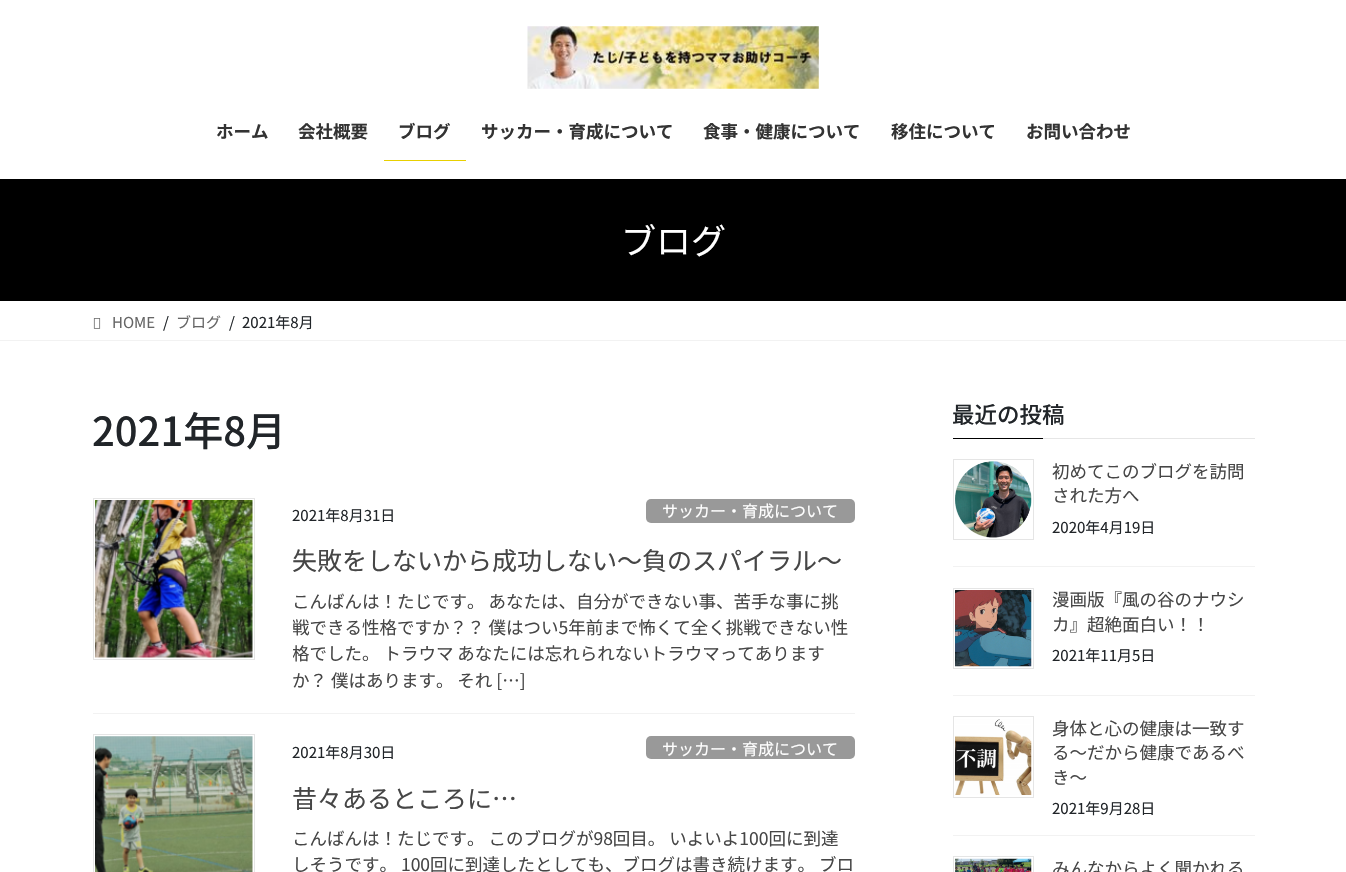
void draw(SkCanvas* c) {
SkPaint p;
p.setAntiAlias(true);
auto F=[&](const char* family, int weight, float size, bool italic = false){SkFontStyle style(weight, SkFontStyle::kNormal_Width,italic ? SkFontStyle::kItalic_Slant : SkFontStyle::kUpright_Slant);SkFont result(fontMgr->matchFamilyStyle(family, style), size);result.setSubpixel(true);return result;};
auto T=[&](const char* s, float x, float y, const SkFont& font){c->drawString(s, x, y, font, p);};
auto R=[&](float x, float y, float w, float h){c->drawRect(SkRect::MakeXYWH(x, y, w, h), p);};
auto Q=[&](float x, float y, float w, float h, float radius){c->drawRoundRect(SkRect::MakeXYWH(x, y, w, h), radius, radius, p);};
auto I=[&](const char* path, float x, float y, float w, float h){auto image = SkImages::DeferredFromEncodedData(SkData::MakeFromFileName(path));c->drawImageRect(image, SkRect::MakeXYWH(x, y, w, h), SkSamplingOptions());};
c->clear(0xffffffff);
p.setColor(0xff000000);
R(0,179,1346,122);
p.setColor(0x1a000000);
p.setMaskFilter(SkMaskFilter::MakeBlur(kNormal_SkBlurStyle, 2));
c->drawRect(SkRect::MakeXYWH(0,1,1346,179),p);
p.setMaskFilter(nullptr);
p.setColor(0xffffffff);
R(0,0,1346,179);
I("1.png",527,26,292,63);
auto f1 = F("Noto Sans JP",700,17.5);
p.setColor(0xff333333);
T("ホーム",216,138,f1);
T("会社概要",298,138,f1);
T("ブログ",398,138,f1);
p.setColor(0xffe8d000);
R(384,160,82,1);
p.setColor(0xff333333);
T("サッカー・育成について",481,138,f1);
T("食事・健康について",703,138,f1);
T("移住について",891,138,f1);
T("お問い合わせ",1026,138,f1);
auto f2 = F("Noto Sans JP",400,35);
p.setColor(0xffffffff);
T("ブログ",621,254,f2);
p.setColor(0xfff2f2f2);
R(0,340,1346,1);
I("2.png",93,318,8,11);
auto f3 = F("Noto Sans JP",400,15);
p.setColor(0xff666666);
T("HOME",112,328,f3);
p.setColor(0xff212529);
T("/",163,328,f3);
p.setColor(0xff666666);
T("ブログ",176,328,f3);
p.setColor(0xff212529);
T("/",229,328,f3);
T("2021年8月",242,328,f3);
auto f4 = F("Noto Sans JP",500,40);
T("2021年8月",92,446,f4);
p.setColor(0xfff2f2f2);
R(93,713,762,1);
p.setStroke(true);
p.setStrokeWidth(1);
p.setColor(0xffe5e5e5);
c->drawRect(SkRect::MakeXYWH(93.5,498.5,161,161),p);
I("3.png",95,500,158,158);
p.setStroke(false);
p.setColor(0xff212529);
T("2021年8月31日",292,521,f3);
p.setColor(0xff999999);
Q(646,499,209,24,5);
auto f5 = F("Noto Sans JP",400,16);
p.setColor(0xffffffff);
T("サッカー・育成について",662,517,f5);
auto f6 = F("Noto Sans JP",400,25);
p.setColor(0xff464646);
T("失敗をしないから成功しない〜負のスパイラル〜",292,570,f6);
auto f7 = F("Noto Sans JP",400,17.5);
T("こんばんは！たじです。 あなたは、自分ができない事、苦手な事に挑",292,608,f7);
c->save();
c->clipRect(SkRect::MakeXYWH(293,588,562,105));
T("戦できる性格ですか？？ 僕はつい5年前まで怖くて全く挑戦できない性",292,634,f7);
T("格でした。 トラウマ あなたには忘れられないトラウマってあります",292,660,f7);
c->restore();
T("か？ 僕はあります。 それ […]",292,687,f7);
p.setStroke(true);
p.setColor(0xffe5e5e5);
c->drawRect(SkRect::MakeXYWH(93.5,734.5,161,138),p);
I("4.png",95,736,158,136);
p.setStroke(false);
p.setColor(0xff212529);
T("2021年8月30日",292,758,f3);
p.setColor(0xff999999);
Q(646,736,209,23,5);
p.setColor(0xffffffff);
T("サッカー・育成について",662,755,f5);
p.setColor(0xff464646);
T("昔々あるところに…",292,808,f6);
T("こんばんは！たじです。 このブログが98回目。 いよいよ100回に到達",292,845,f7);
T("しそうです。 100回に到達したとしても、ブログは書き続けます。 ブロ",292,871,f7);
p.setColor(0xffe6e6e6);
R(1043,438,212,1);
auto f8 = F("Noto Sans JP",500,22.5);
p.setColor(0xff212529);
T("最近の投稿",952,423,f8);
p.setColor(0xff000000);
R(953,438,90,1);
p.setColor(0xfff2f2f2);
R(953,566,302,1);
p.setStroke(true);
p.setColor(0xffe5e5e5);
c->drawRect(SkRect::MakeXYWH(953.5,459.5,80,80),p);
I("5.png",955,461,77,77);
p.setStroke(false);
p.setColor(0xff464646);
T("初めてこのブログを訪問",1052,478,f7);
T("された方へ",1052,502,f7);
p.setColor(0xff212529);
T("2020年4月19日",1052,533,f3);
p.setColor(0xfff2f2f2);
R(953,695,302,1);
p.setStroke(true);
p.setColor(0xffe5e5e5);
c->drawRect(SkRect::MakeXYWH(953.5,588.5,80,80),p);
I("6.png",955,590,77,77);
p.setStroke(false);
p.setColor(0xff464646);
T("漫画版『風の谷のナウシ",1052,606,f7);
T("カ』超絶面白い！！",1052,631,f7);
p.setColor(0xff212529);
T("2021年11月5日",1052,661,f3);
p.setColor(0xfff2f2f2);
R(953,835,302,1);
p.setStroke(true);
p.setColor(0xffe5e5e5);
c->drawRect(SkRect::MakeXYWH(953.5,716.5,80,81),p);
I("7.png",955,719,77,76);
p.setStroke(false);
p.setColor(0xff464646);
T("身体と心の健康は一致す",1052,735,f7);
T("る〜だから健康であるべ",1052,759,f7);
T("き〜",1052,784,f7);
p.setColor(0xff212529);
T("2021年9月28日",1052,814,f3);
p.setStroke(true);
p.setColor(0xffe5e5e5);
c->drawRect(SkRect::MakeXYWH(953.5,856.5,80,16),p);
I("8.png",955,858,77,14);
p.setStroke(false);
p.setColor(0xff464646);
T("みんなからよく聞かれる",1052,875,f7);
}
